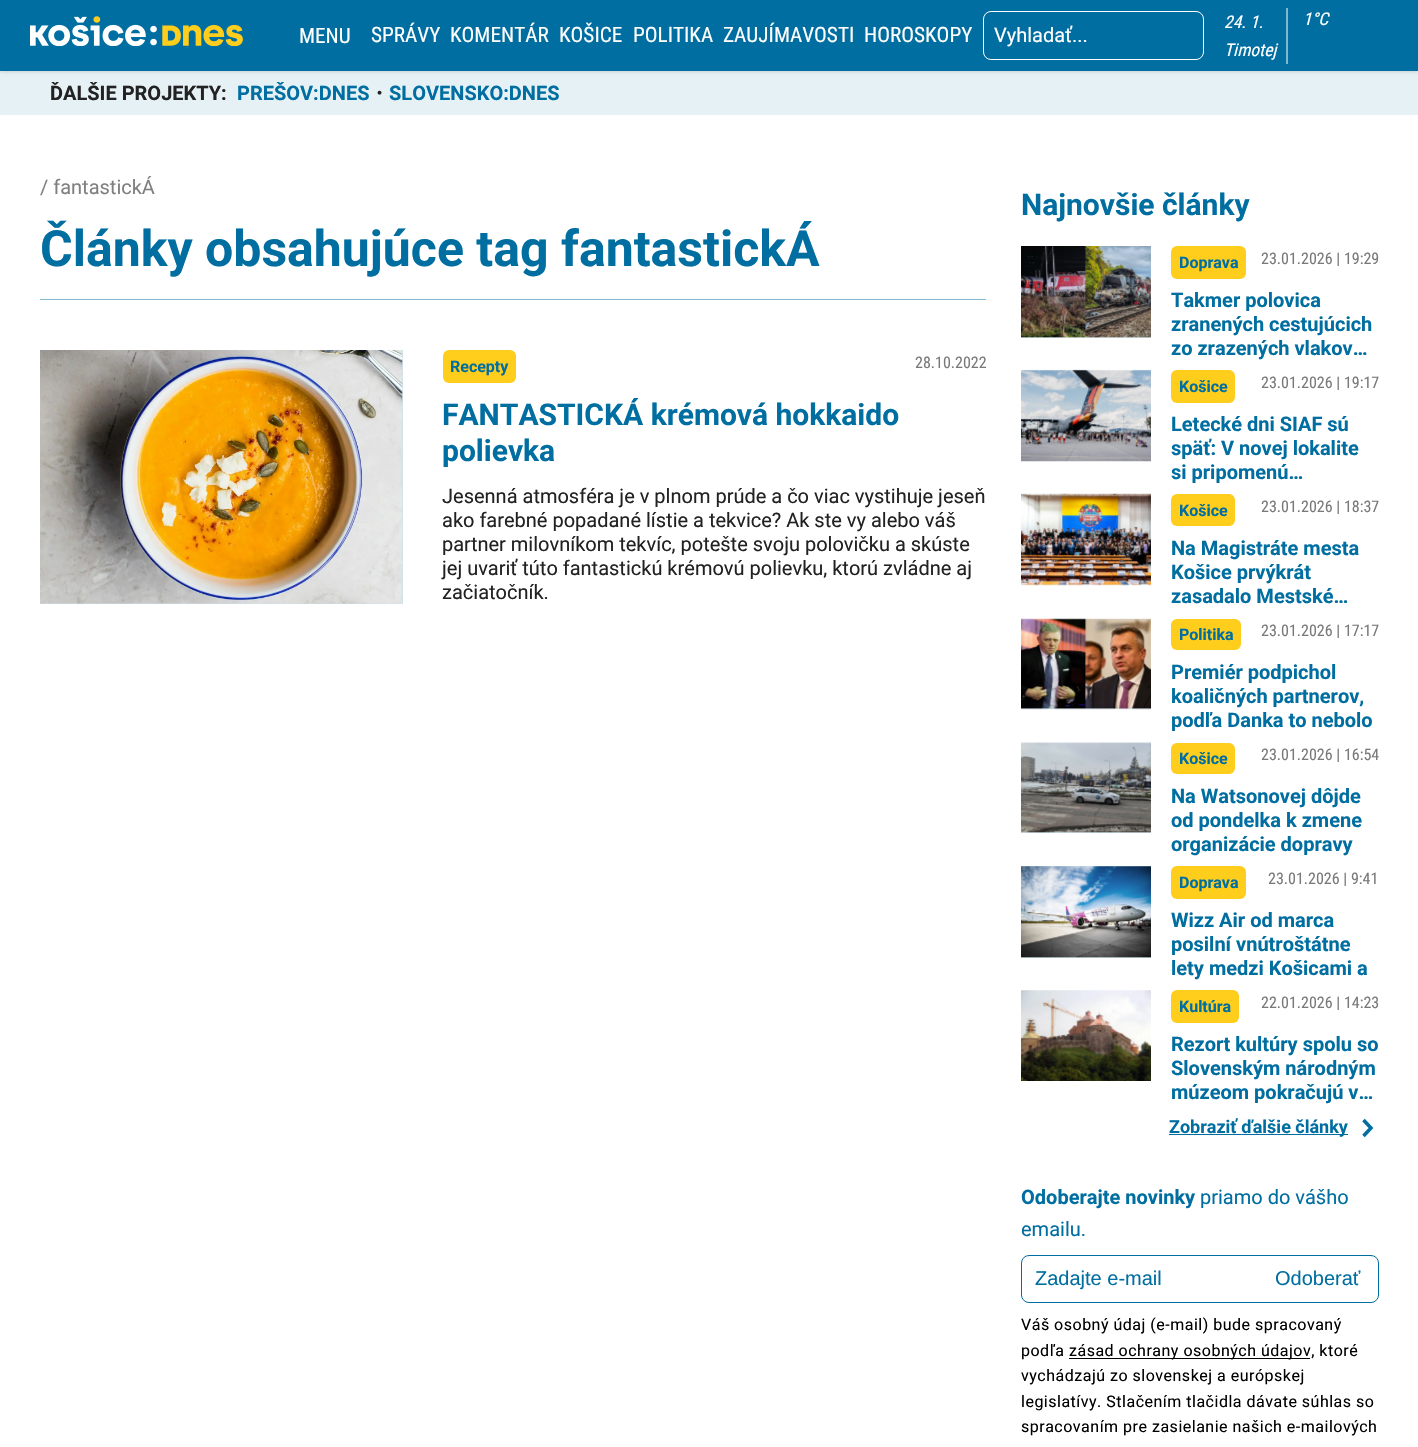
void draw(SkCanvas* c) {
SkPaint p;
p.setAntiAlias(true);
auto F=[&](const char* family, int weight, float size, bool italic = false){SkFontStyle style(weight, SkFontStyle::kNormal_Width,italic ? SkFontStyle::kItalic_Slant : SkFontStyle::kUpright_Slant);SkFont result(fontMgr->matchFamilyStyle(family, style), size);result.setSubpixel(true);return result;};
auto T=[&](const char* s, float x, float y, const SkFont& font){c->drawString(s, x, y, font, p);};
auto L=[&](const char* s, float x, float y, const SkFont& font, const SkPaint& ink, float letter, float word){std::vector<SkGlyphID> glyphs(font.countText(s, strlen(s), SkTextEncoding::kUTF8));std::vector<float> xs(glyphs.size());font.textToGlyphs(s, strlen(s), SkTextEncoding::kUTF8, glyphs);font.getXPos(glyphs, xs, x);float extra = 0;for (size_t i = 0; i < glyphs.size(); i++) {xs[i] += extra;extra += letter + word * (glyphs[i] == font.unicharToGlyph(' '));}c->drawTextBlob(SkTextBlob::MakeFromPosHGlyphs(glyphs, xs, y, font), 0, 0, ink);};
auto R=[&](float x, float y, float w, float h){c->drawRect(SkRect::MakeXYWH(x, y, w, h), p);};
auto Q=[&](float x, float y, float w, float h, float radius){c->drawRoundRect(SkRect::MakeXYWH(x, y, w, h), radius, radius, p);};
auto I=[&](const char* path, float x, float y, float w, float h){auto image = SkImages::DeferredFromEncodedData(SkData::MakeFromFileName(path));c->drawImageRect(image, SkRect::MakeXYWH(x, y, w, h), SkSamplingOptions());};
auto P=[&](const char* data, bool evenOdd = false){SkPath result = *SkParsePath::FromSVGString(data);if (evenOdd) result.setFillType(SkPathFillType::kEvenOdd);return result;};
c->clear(0xffffffff);
p.setColor(0xffe6f1f6);
R(0,71,1418,44);
p.setColor(0x33000000);
p.setMaskFilter(SkMaskFilter::MakeBlur(kNormal_SkBlurStyle, 2));
c->drawRect(SkRect::MakeXYWH(0,0,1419,71),p);
p.setMaskFilter(nullptr);
p.setColor(0xff006ea0);
R(0,0,1418,71);
I("1.png",30,16,213,30);
auto f1 = F("Roboto Condensed",400,21.25);
p.setColor(0xffffffff);
T("MENU",299,43,f1);
T("SPRÁVY",371,42,f1);
T("KOMENTÁR",450,42,f1);
T("KOŠICE",559,42,f1);
T("POLITIKA",633,42,f1);
T("ZAUJÍMAVOSTI",723,42,f1);
T("HOROSKOPY",864,42,f1);
p.setStroke(true);
p.setStrokeWidth(1);
c->drawRoundRect(SkRect::MakeXYWH(983.5,11.5,220,48),7.5,7.5,p);
auto f2 = F("Roboto",400,20);
p.setStroke(false);
T("Vyhladať...",994,42,f2);
p.setColor(0xff80b7d0);
R(1286,8,2,56);
auto f3 = F("Roboto Condensed",400,17.5,true);
p.setColor(0xffffffff);
T("24. 1.",1224,28,f3);
T("Timotej",1224,56,f3);
T("1°C",1303,25,f3);
auto f4 = F("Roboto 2",700,20);
p.setColor(0xff222222);
T("ĎALŠIE PROJEKTY:",50,100,f4);
p.setColor(0xff006ea0);
T("PREŠOV:DNES",237,100,f4);
auto f5 = F("WenQuanYi Zen Hei",700,20);
p.setColor(0xff222222);
T("・",369,100,f5);
p.setColor(0xff006ea0);
T("SLOVENSKO:DNES",389,100,f4);
p.setColor(0xff808080);
T("/ fantastickÁ",40,194,f2);
p.setColor(0xff80b7d0);
R(40,299,946,1);
auto f6 = F("Roboto",700,50);
p.setColor(0xff006ea0);
T("Články obsahujúce tag fantastickÁ",40,266,f6);
p.setColor(0xffcce2ec);
R(40,350,363,254);
I("2.png",40,350,363,254);
p.setColor(0xffffcd1c);
Q(443,350,73,33,6);
auto f7 = F("Roboto",700,16);
p.setColor(0xff006ea0);
T("Recepty",450,372,f7);
auto f8 = F("Roboto Condensed",400,16);
p.setColor(0xff797979);
T("28.10.2022",915,368,f8);
auto f9 = F("Roboto",700,30);
p.setColor(0xff006ea0);
T("FANTASTICKÁ krémová hokkaido",442,425,f9);
T("polievka",442,461,f9);
p.setColor(0xff222222);
T("Jesenná atmosféra je v plnom prúde a čo viac vystihuje jeseň",442,503,f2);
T("ako farebné popadané lístie a tekvice? Ak ste vy alebo váš",442,527,f2);
T("partner milovníkom tekvíc, potešte svoju polovičku a skúste",442,551,f2);
T("jej uvariť túto fantastickú krémovú polievku, ktorú zvládne aj",442,575,f2);
T("začiatočník.",442,599,f2);
p.setColor(0xff006ea0);
T("Najnovšie články",1021,215,f9);
p.setColor(0xffcce2ec);
R(1021,337,130,1);
I("3.png",1021,246,130,92);
p.setColor(0xffffcd1c);
Q(1171,246,75,33,6);
p.setColor(0xff006ea0);
T("Doprava",1179,268,f7);
p.setColor(0xff797979);
T("23.01.2026 | 19:29",1261,264,f8);
auto f10 = F("Roboto",700,20);
p.setColor(0xff006ea0);
T("Takmer polovica",1171,307,f10);
T("zranených cestujúcich",1171,331,f10);
T("zo zrazených vlakov…",1171,355,f10);
I("4.png",1021,369,130,93);
p.setColor(0xffffcd1c);
Q(1171,370,64,33,6);
p.setColor(0xff006ea0);
T("Košice",1179,392,f7);
p.setColor(0xff797979);
T("23.01.2026 | 19:17",1261,388,f8);
p.setColor(0xff006ea0);
T("Letecké dni SIAF sú",1171,431,f10);
T("späť: V novej lokalite",1171,455,f10);
T("si pripomenú…",1171,479,f10);
p.setColor(0xffcce2ec);
R(1021,494,130,91);
I("5.png",1021,493,130,93);
p.setColor(0xffffcd1c);
Q(1171,494,64,32,6);
p.setColor(0xff006ea0);
T("Košice",1179,516,f7);
p.setColor(0xff797979);
T("23.01.2026 | 18:37",1261,512,f8);
p.setColor(0xff006ea0);
T("Na Magistráte mesta",1171,555,f10);
T("Košice prvýkrát",1171,579,f10);
T("zasadalo Mestské…",1171,603,f10);
p.setColor(0xffcce2ec);
R(1021,619,130,90);
I("6.png",1021,618,130,92);
p.setColor(0xffffcd1c);
Q(1171,619,70,31,6);
p.setColor(0xff006ea0);
T("Politika",1179,640,f7);
p.setColor(0xff797979);
T("23.01.2026 | 17:17",1261,636,f8);
p.setColor(0xff006ea0);
T("Premiér podpichol",1171,679,f10);
T("koaličných partnerov,",1171,703,f10);
T("podľa Danka to nebolo",1171,727,f10);
p.setColor(0xffcce2ec);
R(1021,743,130,90);
I("7.png",1021,742,130,91);
p.setColor(0xffffcd1c);
Q(1171,743,64,31,6);
p.setColor(0xff006ea0);
T("Košice",1179,764,f7);
p.setColor(0xff797979);
T("23.01.2026 | 16:54",1261,760,f8);
p.setColor(0xff006ea0);
T("Na Watsonovej dôjde",1171,803,f10);
T("od pondelka k zmene",1171,827,f10);
T("organizácie dopravy",1171,851,f10);
p.setColor(0xffcce2ec);
R(1021,866,130,92);
I("8.png",1021,866,130,92);
p.setColor(0xffffcd1c);
Q(1171,866,75,33,6);
p.setColor(0xff006ea0);
T("Doprava",1179,888,f7);
p.setColor(0xff797979);
T("23.01.2026 | 9:41",1268,884,f8);
p.setColor(0xff006ea0);
T("Wizz Air od marca",1171,927,f10);
T("posilní vnútroštátne",1171,951,f10);
T("lety medzi Košicami a",1171,975,f10);
I("9.png",1021,990,130,91);
p.setColor(0xffffcd1c);
Q(1171,990,68,33,6);
p.setColor(0xff006ea0);
T("Kultúra",1179,1012,f7);
p.setColor(0xff797979);
T("22.01.2026 | 14:23",1261,1008,f8);
p.setColor(0xff006ea0);
T("Rezort kultúry spolu so",1171,1051,f10);
T("Slovenským národným",1171,1075,f10);
T("múzeom pokračujú v…",1171,1099,f10);
R(1169,1134,179,1);
auto f11 = F("Roboto",700,18);
T("Zobraziť ďalšie články",1169,1133,f11);
p.setStroke(true);
p.setStrokeWidth(3.5);
c->drawPath(P("M1363.5 1136l7.5-8l-7.5-8"),p);
p.setStroke(false);
T("Odoberajte novinky",1021,1204,f4);
T("priamo do vášho",1200,1204,f2);
T("emailu.",1021,1236,f2);
p.setStroke(true);
p.setStrokeWidth(1);
c->drawRoundRect(SkRect::MakeXYWH(1021.5,1255.5,357,47),7.5,7.5,p);
auto f12 = F("Liberation Sans",400,20);
p.setStroke(false);
T("Zadajte e-mail",1035,1285,f12);
T("Odoberať",1275,1285,f12);
auto f13 = F("Roboto",400,16);
p.setColor(0xff000000);
L("Váš osobný údaj (e-mail) bude spracovaný",1021,1330,f13,p,.5,0);
L("podľa",1021,1356,f13,p,.5,0);
R(1069,1358,241,1);
L("zásad ochrany osobných údajov, ktoré",1069,1356,f13,p,.5,0);
L("vychádzajú zo slovenskej a európskej",1021,1381,f13,p,.5,0);
L("legislatívy. Stlačením tlačidla dávate súhlas so",1021,1407,f13,p,.5,0);
L("spracovaním pre zasielanie našich e-mailových",1021,1432,f13,p,.5,0);
}
